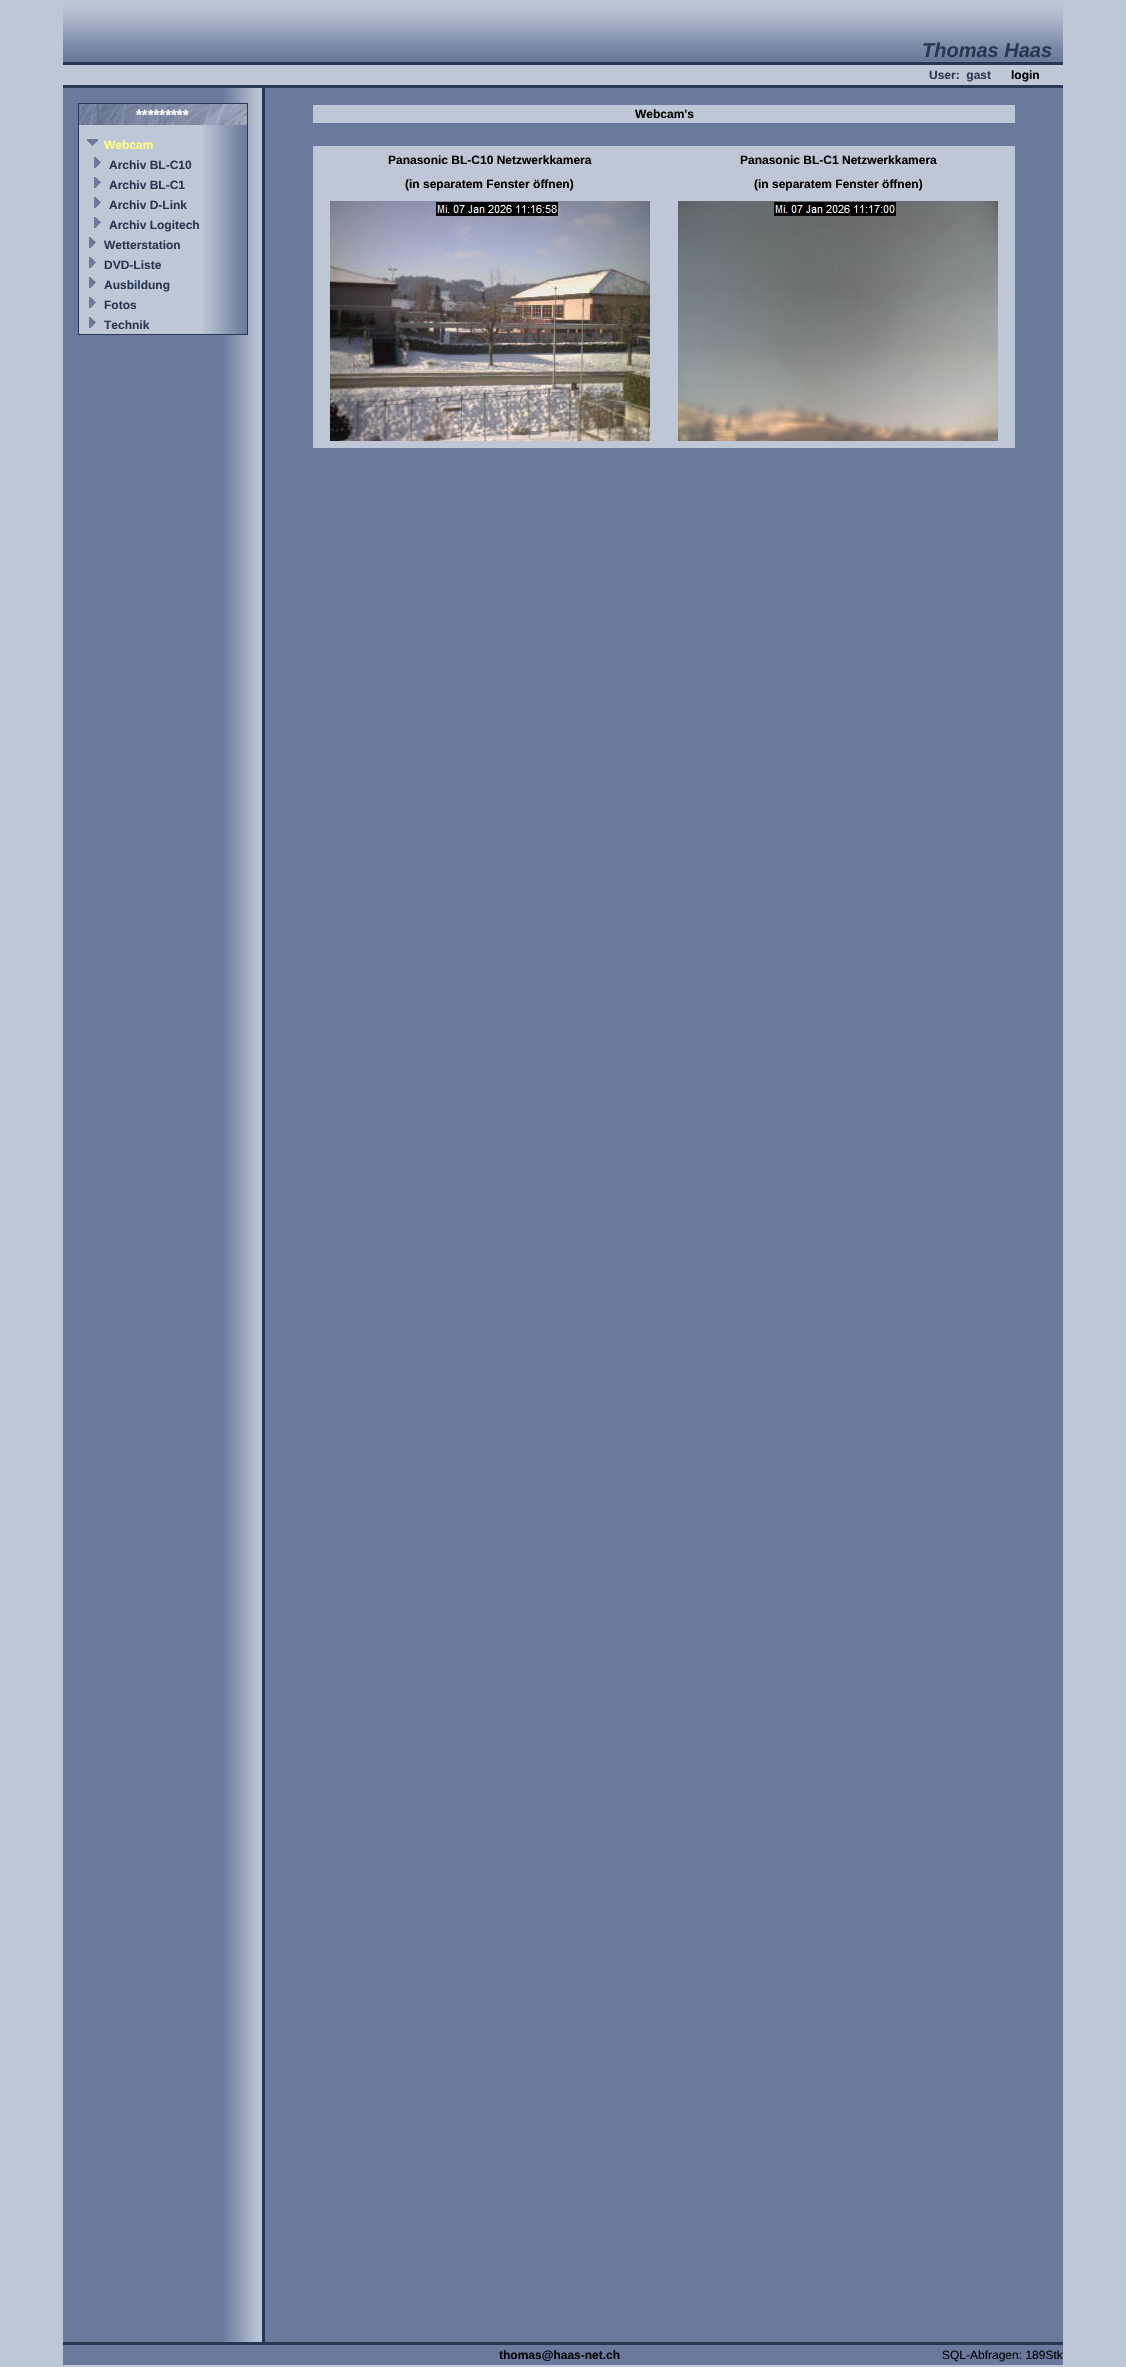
void draw(SkCanvas* c) {
SkPaint p;
p.setAntiAlias(true);
auto F=[&](const char* family, int weight, float size, bool italic = false){SkFontStyle style(weight, SkFontStyle::kNormal_Width,italic ? SkFontStyle::kItalic_Slant : SkFontStyle::kUpright_Slant);SkFont result(fontMgr->matchFamilyStyle(family, style), size);result.setSubpixel(true);return result;};
auto T=[&](const char* s, float x, float y, const SkFont& font){c->drawString(s, x, y, font, p);};
auto R=[&](float x, float y, float w, float h){c->drawRect(SkRect::MakeXYWH(x, y, w, h), p);};
auto I=[&](const char* path, float x, float y, float w, float h){auto image = SkImages::DeferredFromEncodedData(SkData::MakeFromFileName(path));c->drawImageRect(image, SkRect::MakeXYWH(x, y, w, h), SkSamplingOptions());};
c->clear(0xffbdc7d6);
p.setColor(0xff6b799c);
R(63,57,1000,2308);
I("1.png",63,2,1000,55);
auto f1 = F("Liberation Sans",700,20,true);
p.setColor(0xff293852);
T("Thomas Haas",922,57,f1);
R(63,62,1000,3);
p.setColor(0xffbdc7d6);
R(63,65,1000,20);
auto f2 = F("Liberation Sans",700,12);
p.setColor(0xff293852);
T("User:  gast",929,79,f2);
p.setColor(0xff000000);
T("login",1011,79,f2);
p.setColor(0xff293852);
R(63,85,1000,3);
I("2.png",223,88,39,2254);
p.setColor(0xffbdc7d6);
R(79,125,124,209);
I("3.png",203,125,44,209);
p.setStroke(true);
p.setStrokeWidth(1);
p.setColor(0xff293852);
c->drawRect(SkRect::MakeXYWH(78.5,103.5,169,231),p);
I("4.png",79,104,168,21);
auto f3 = F("Liberation Sans",700,15);
p.setStroke(false);
p.setColor(0xffffffff);
T("*********",136,120,f3);
I("5.png",87,139,11,7);
p.setColor(0xffffff80);
T("Webcam",104,149,f2);
I("6.png",94,157,7,11);
p.setColor(0xff293852);
T("Archiv BL-C10",109,169,f2);
I("6.png",94,177,7,11);
T("Archiv BL-C1",109,189,f2);
I("6.png",94,197,7,11);
T("Archiv D-Link",109,209,f2);
I("6.png",94,217,7,11);
T("Archiv Logitech",109,229,f2);
I("6.png",89,237,7,11);
T("Wetterstation",104,249,f2);
I("6.png",89,257,7,11);
T("DVD-Liste",104,269,f2);
I("6.png",89,277,7,11);
T("Ausbildung",104,289,f2);
I("6.png",89,297,7,11);
T("Fotos",104,309,f2);
I("6.png",89,317,7,11);
T("Technik",104,329,f2);
R(262,88,3,2254);
p.setColor(0xffbdc7d6);
R(313,105,702,18);
p.setColor(0xff000000);
T("Webcam's",635,118,f2);
p.setColor(0xffbdc7d6);
R(313,146,702,302);
p.setColor(0xff000000);
T("Panasonic BL-C10 Netzwerkkamera",388,164,f2);
T("Panasonic BL-C1 Netzwerkkamera",740,164,f2);
T("(in separatem Fenster öffnen)",405,188,f2);
T("(in separatem Fenster öffnen)",754,188,f2);
I("7.png",330,201,320,240);
I("8.png",678,201,320,240);
p.setColor(0xff293852);
R(63,2342,1000,3);
p.setColor(0xff000000);
T("thomas@haas-net.ch",499,2359,f2);
auto f4 = F("Liberation Sans",400,12);
T("SQL-Abfragen: 189Stk",942,2359,f4);
}
